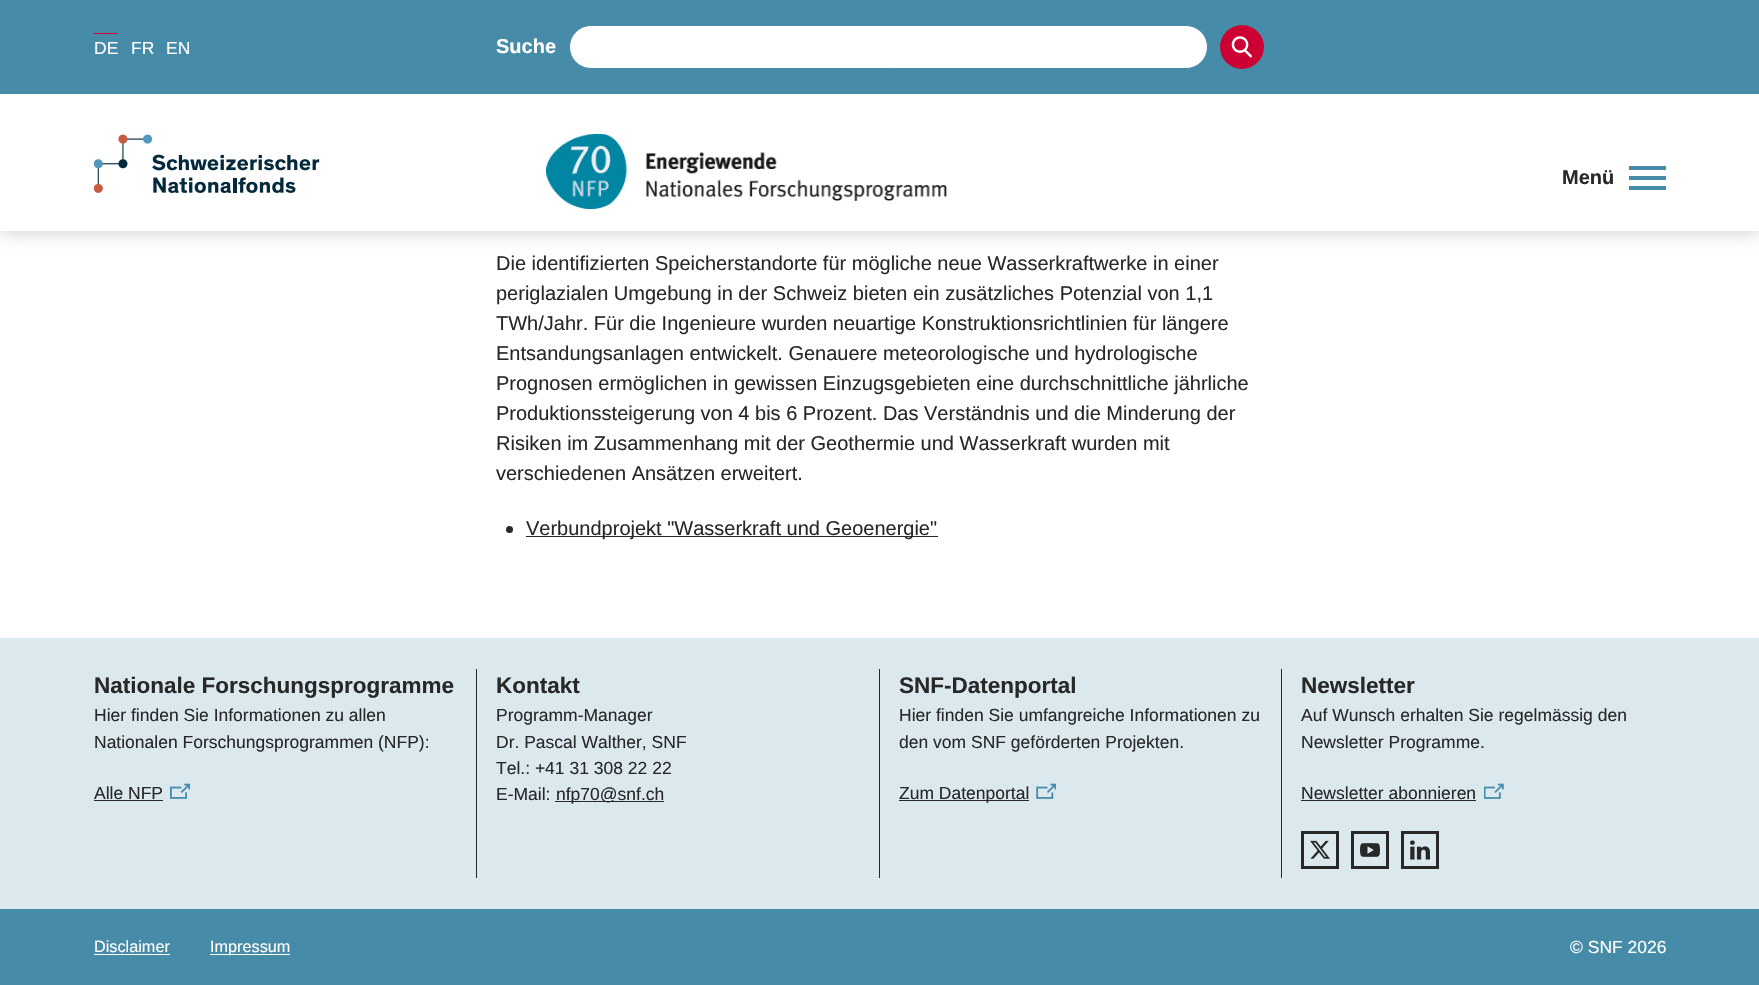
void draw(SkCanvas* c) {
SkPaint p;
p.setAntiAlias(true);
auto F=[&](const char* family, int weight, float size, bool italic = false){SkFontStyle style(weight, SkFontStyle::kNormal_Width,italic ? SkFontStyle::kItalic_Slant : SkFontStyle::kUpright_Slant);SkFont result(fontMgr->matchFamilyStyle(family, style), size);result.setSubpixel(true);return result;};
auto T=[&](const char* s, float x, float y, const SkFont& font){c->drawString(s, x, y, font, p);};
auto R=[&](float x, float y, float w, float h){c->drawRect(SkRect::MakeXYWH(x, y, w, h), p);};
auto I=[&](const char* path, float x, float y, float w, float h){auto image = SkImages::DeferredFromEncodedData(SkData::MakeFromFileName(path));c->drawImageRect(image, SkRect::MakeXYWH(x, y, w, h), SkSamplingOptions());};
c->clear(0xffffffff);
p.setColor(0x40282828);
p.setMaskFilter(SkMaskFilter::MakeBlur(kNormal_SkBlurStyle, 9.5));
c->drawRect(SkRect::MakeXYWH(0,0,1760,231),p);
p.setMaskFilter(nullptr);
p.setColor(0xff468ba8);
R(0,0,1759,94);
p.setColor(0xffcc0033);
R(94,33,24,1);
auto f1 = F("Liberation Sans",400,17.5);
p.setColor(0xffffffff);
T("DE",94,54,f1);
T("FR",131,54,f1);
T("EN",166,54,f1);
auto f2 = F("Liberation Sans",700,20);
T("Suche",496,53,f2);
c->drawRoundRect(SkRect::MakeXYWH(569.5,25.5,638,43),21.5,21.5,p);
p.setStroke(true);
p.setStrokeWidth(1);
p.setColor(0xff468ba8);
c->drawRoundRect(SkRect::MakeXYWH(569.5,25.5,638,43),21.5,21.5,p);
p.setStroke(false);
p.setColor(0xffcc0033);
c->drawCircle(1242,47,22,p);
I("1.png",1231,36,21,22);
p.setColor(0xffffffff);
R(0,94,1759,137);
I("2.png",94,134,226,59);
I("3.png",546,134,401,75);
p.setColor(0xff282828);
T("Menü",1562,184,f2);
p.setColor(0xff468ba8);
R(1629,176,37,4);
R(1629,166,37,4);
R(1629,186,37,4);
auto f3 = F("Liberation Sans",400,20);
p.setColor(0xff282828);
T("Die identifizierten Speicherstandorte für mögliche neue Wasserkraftwerke in einer",496,270,f3);
T("periglazialen Umgebung in der Schweiz bieten ein zusätzliches Potenzial von 1,1",496,300,f3);
T("TWh/Jahr. Für die Ingenieure wurden neuartige Konstruktionsrichtlinien für längere",496,330,f3);
T("Entsandungsanlagen entwickelt. Genauere meteorologische und hydrologische",496,360,f3);
T("Prognosen ermöglichen in gewissen Einzugsgebieten eine durchschnittliche jährliche",496,390,f3);
T("Produktionssteigerung von 4 bis 6 Prozent. Das Verständnis und die Minderung der",496,420,f3);
T("Risiken im Zusammenhang mit der Geothermie und Wasserkraft wurden mit",496,450,f3);
T("verschiedenen Ansätzen erweitert.",496,480,f3);
c->drawCircle(509.5,529.5,3.5,p);
R(526,536,412,1);
T("Verbundprojekt \"Wasserkraft und Geoenergie\"",526,535,f3);
p.setColor(0xffdbe8ee);
R(0,638,1759,271);
auto f4 = F("Liberation Sans",700,22.5);
p.setColor(0xff282828);
T("Nationale Forschungsprogramme",94,693,f4);
T("Hier finden Sie Informationen zu allen",94,721,f1);
T("Nationalen Forschungsprogrammen (NFP):",94,748,f1);
T("Alle NFP",94,799,f1);
R(94,800,69,1);
I("4.png",170,783,20,16);
R(476,669,1,209);
T("Kontakt",496,693,f4);
R(879,669,1,209);
T("Programm-Manager",496,721,f1);
T("Dr. Pascal Walther, SNF",496,748,f1);
T("Tel.: +41 31 308 22 22",496,774,f1);
T("E-Mail:",496,800,f1);
R(555,801,109,1);
T("nfp70@snf.ch",556,800,f1);
T("SNF-Datenportal",899,693,f4);
R(1281,669,1,209);
T("Hier finden Sie umfangreiche Informationen zu",899,721,f1);
T("den vom SNF geförderten Projekten.",899,748,f1);
R(899,800,130,1);
T("Zum Datenportal",899,799,f1);
I("5.png",1036,783,20,16);
T("Newsletter",1301,693,f4);
T("Auf Wunsch erhalten Sie regelmässig den",1301,721,f1);
T("Newsletter Programme.",1301,748,f1);
T("Newsletter abonnieren",1301,799,f1);
R(1301,800,175,1);
I("6.png",1484,783,20,16);
p.setStroke(true);
p.setStrokeWidth(3);
c->drawRect(SkRect::MakeXYWH(1302.5,832.5,35,35),p);
I("7.png",1310,840,20,19);
c->drawRect(SkRect::MakeXYWH(1352.5,832.5,35,35),p);
I("8.png",1360,843,20,14);
c->drawRect(SkRect::MakeXYWH(1402.5,832.5,35,35),p);
I("9.png",1410,840,20,20);
p.setStroke(false);
p.setColor(0xff468ba8);
R(0,909,1759,76);
auto f5 = F("Liberation Sans",400,16.25);
p.setColor(0xffffffff);
T("Disclaimer",94,952,f5);
R(94,954,76,1);
R(210,954,80,1);
T("Impressum",210,952,f5);
T("© SNF 2026",1570,953,f1);
}
